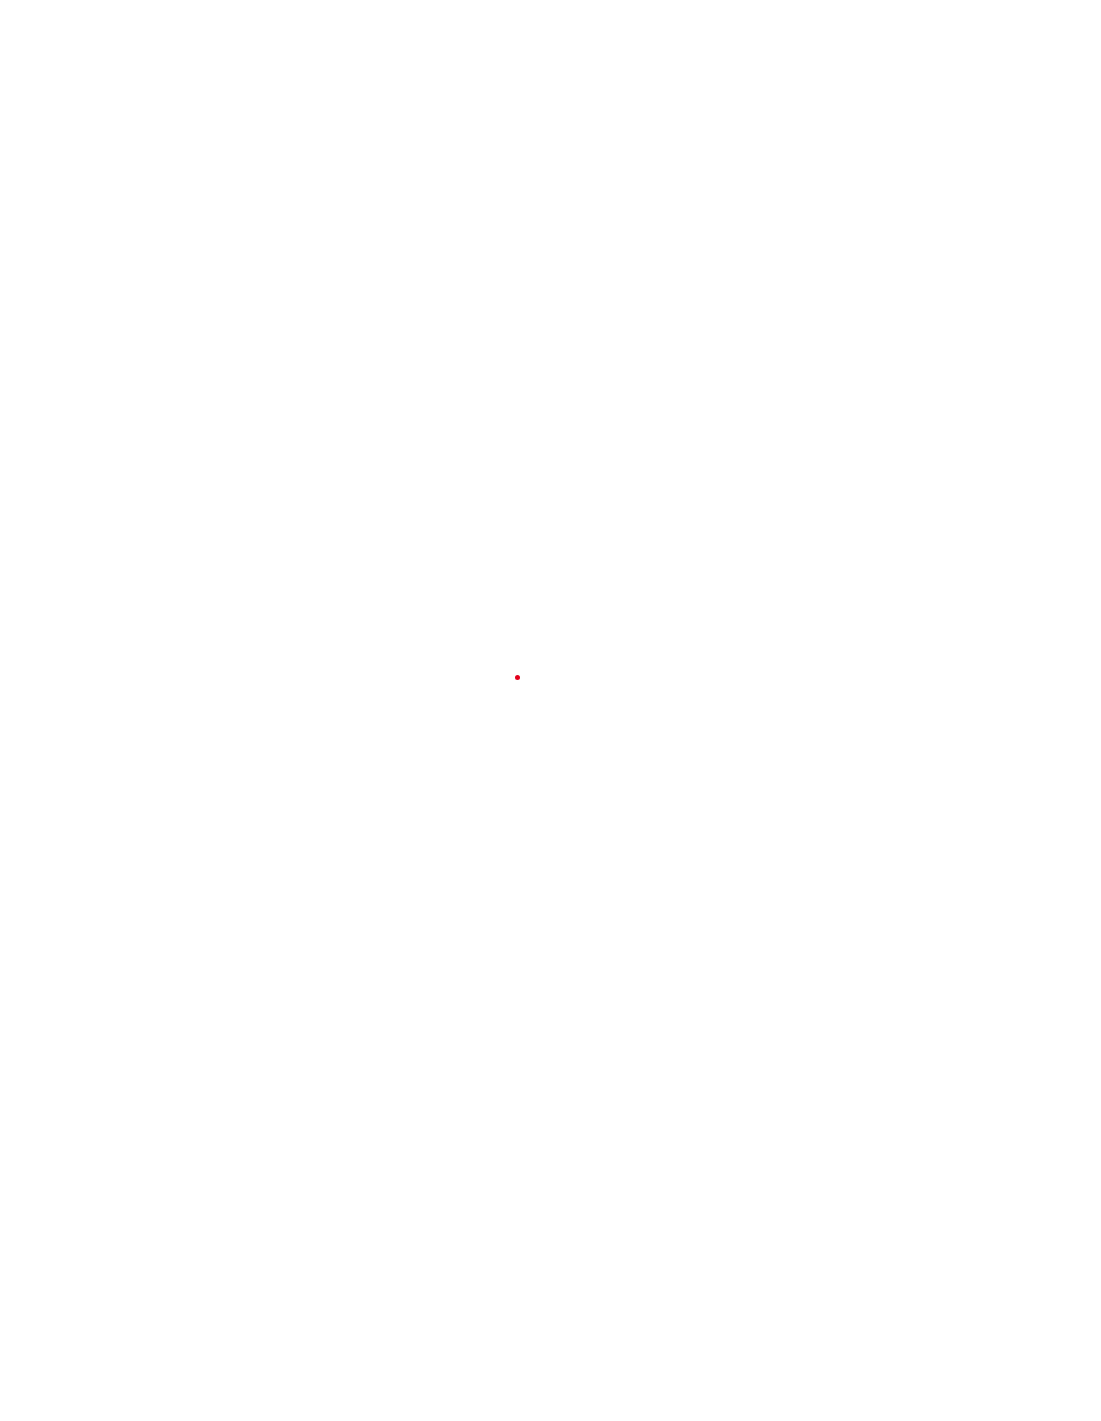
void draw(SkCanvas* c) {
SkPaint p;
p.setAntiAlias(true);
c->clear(0xffffffff);
p.setColor(0xffe3001b);
c->drawCircle(517.5,677.5,2.5,p);
}
